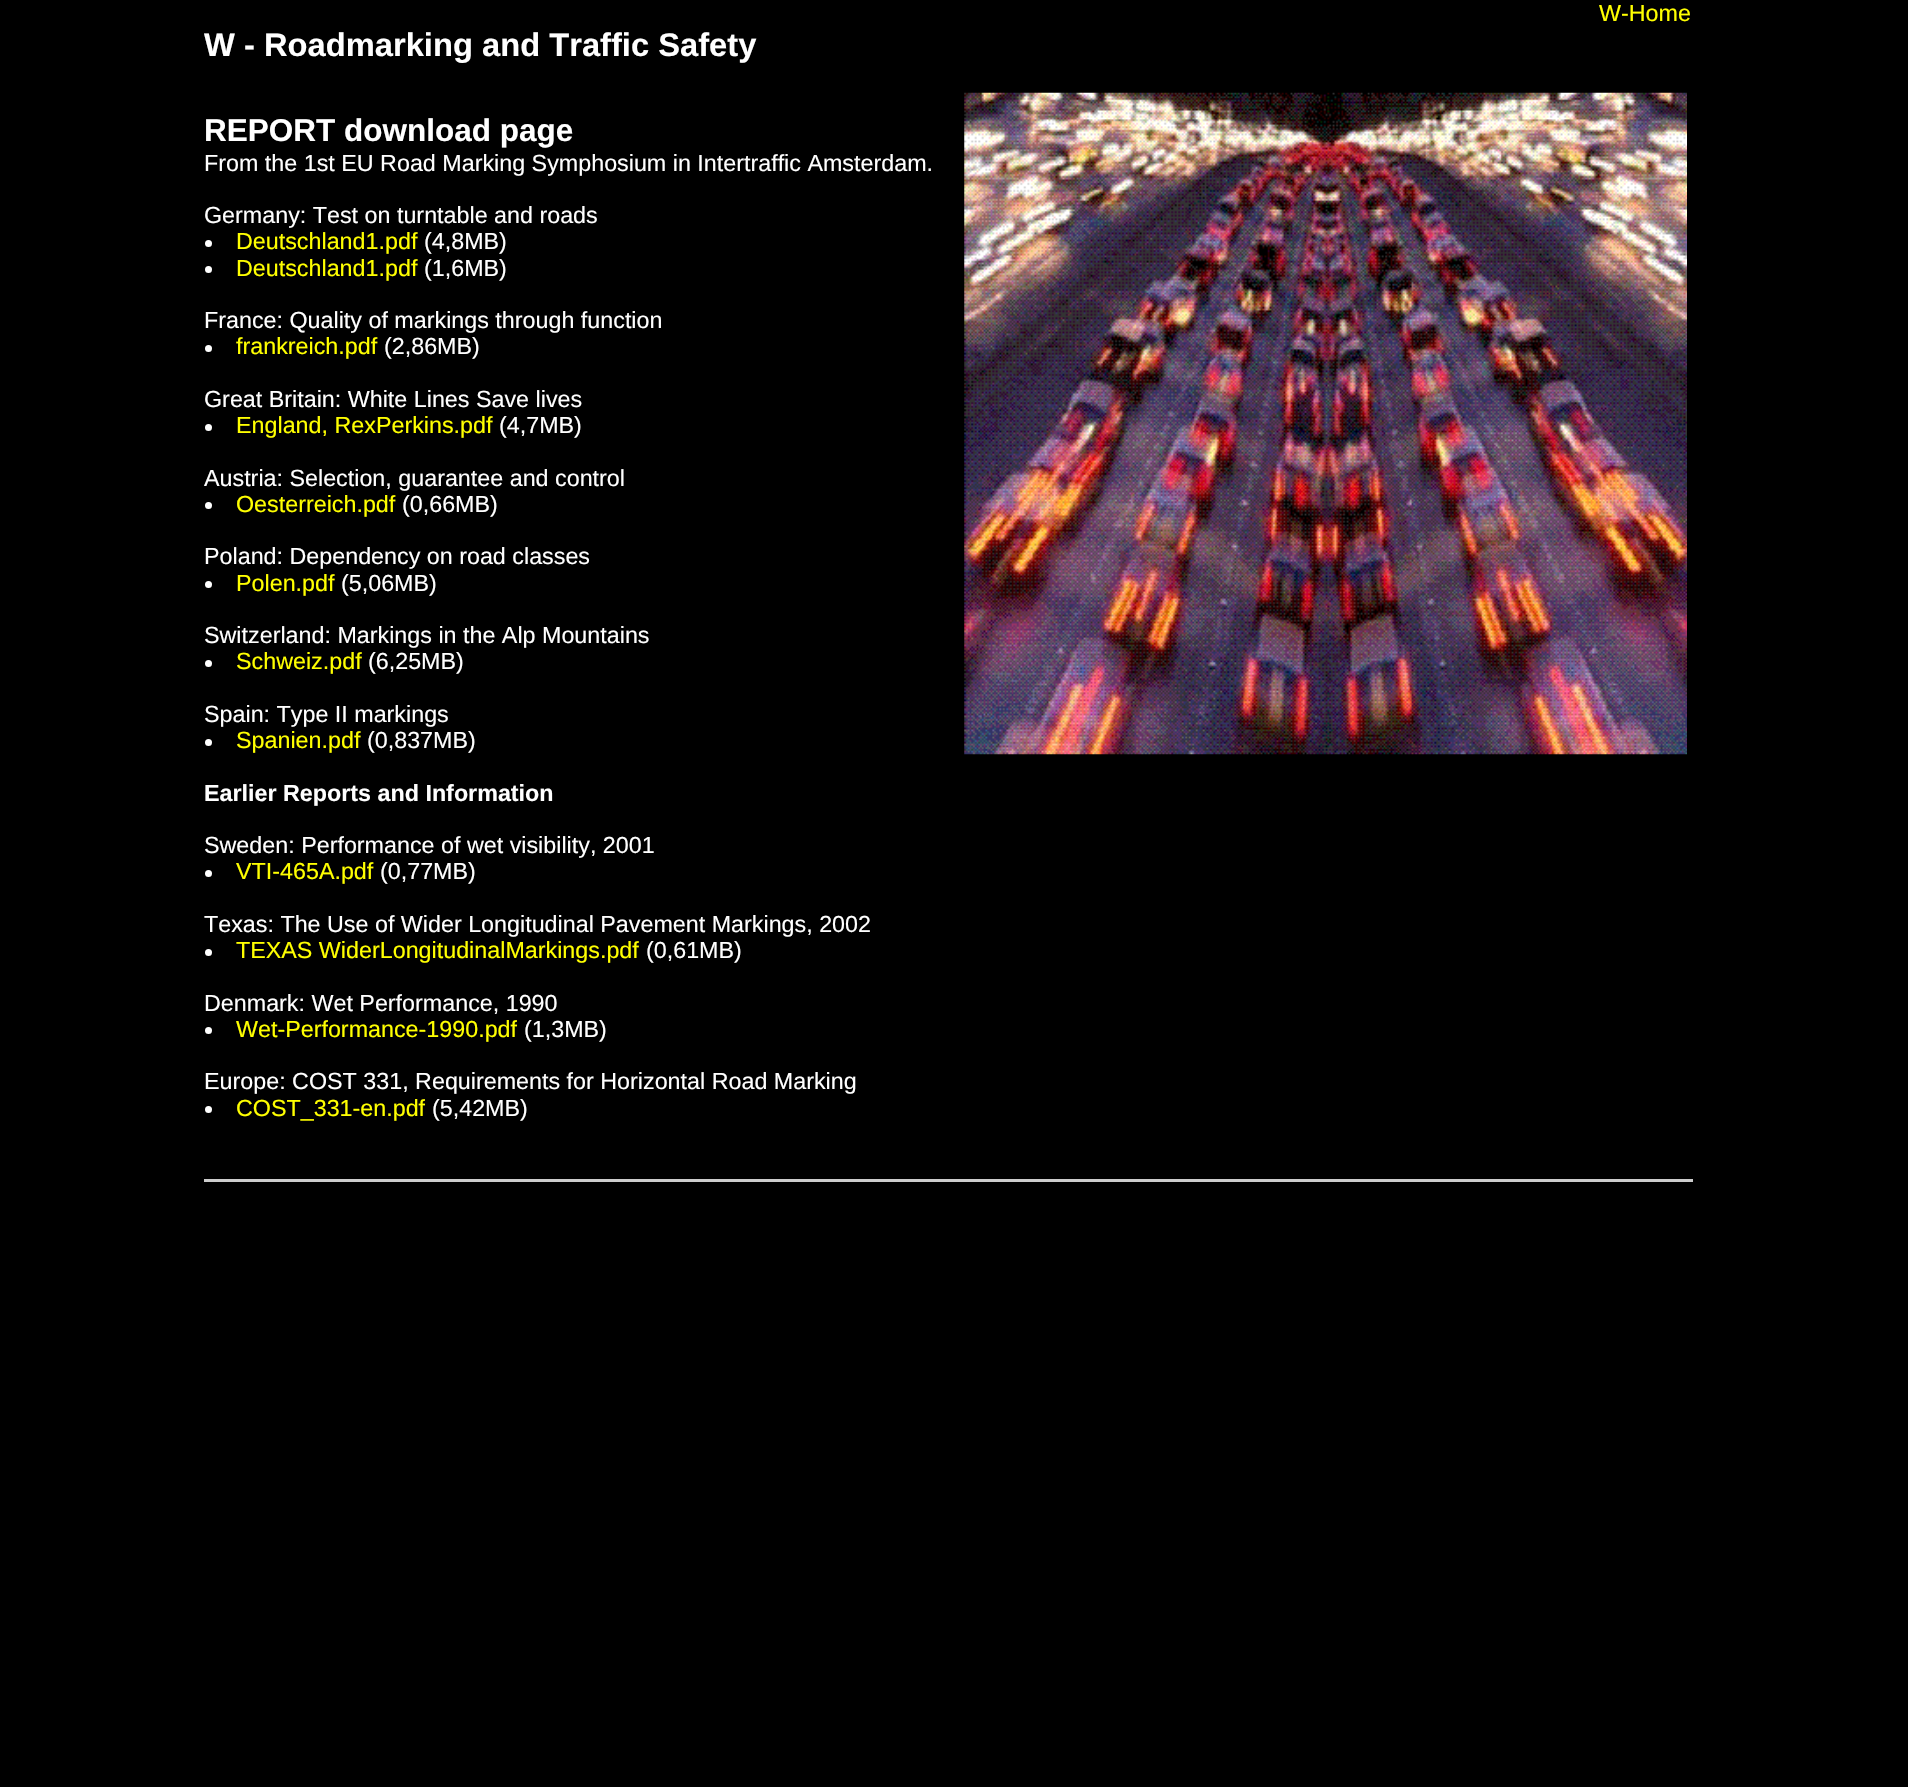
void draw(SkCanvas* c) {
SkPaint p;
p.setAntiAlias(true);
auto F=[&](const char* family, int weight, float size, bool italic = false){SkFontStyle style(weight, SkFontStyle::kNormal_Width,italic ? SkFontStyle::kItalic_Slant : SkFontStyle::kUpright_Slant);SkFont result(fontMgr->matchFamilyStyle(family, style), size);result.setSubpixel(true);return result;};
auto T=[&](const char* s, float x, float y, const SkFont& font){c->drawString(s, x, y, font, p);};
auto R=[&](float x, float y, float w, float h){c->drawRect(SkRect::MakeXYWH(x, y, w, h), p);};
auto I=[&](const char* path, float x, float y, float w, float h){auto image = SkImages::DeferredFromEncodedData(SkData::MakeFromFileName(path));c->drawImageRect(image, SkRect::MakeXYWH(x, y, w, h), SkSamplingOptions());};
c->clear(0xff000000);
auto f1 = F("Liberation Sans",400,23.3);
p.setColor(0xffffff00);
T("W-Home",1599,21,f1);
auto f2 = F("Liberation Sans",700,32.7);
p.setColor(0xffffffff);
T("W - Roadmarking and Traffic Safety",204,56,f2);
auto f3 = F("Liberation Sans",700,31.5);
T("REPORT download page",204,141,f3);
I("1.png",964,92,723,663);
T("From the 1st EU Road Marking Symphosium in Intertraffic Amsterdam.",204,171,f1);
T("Germany: Test on turntable and roads",204,223,f1);
c->drawCircle(208.5,243.5,3.5,p);
p.setColor(0xffffff00);
T("Deutschland1.pdf",236,249,f1);
p.setColor(0xffffffff);
T("(4,8MB)",424,249,f1);
c->drawCircle(208.5,269.5,3.5,p);
p.setColor(0xffffff00);
T("Deutschland1.pdf",236,276,f1);
p.setColor(0xffffffff);
T("(1,6MB)",424,276,f1);
T("France: Quality of markings through function",204,328,f1);
c->drawCircle(208.5,348.5,3.5,p);
p.setColor(0xffffff00);
T("frankreich.pdf",236,354,f1);
p.setColor(0xffffffff);
T("(2,86MB)",384,354,f1);
T("Great Britain: White Lines Save lives",204,407,f1);
c->drawCircle(208.5,427.5,3.5,p);
p.setColor(0xffffff00);
T("England, RexPerkins.pdf",236,433,f1);
p.setColor(0xffffffff);
T("(4,7MB)",499,433,f1);
T("Austria: Selection, guarantee and control",204,486,f1);
c->drawCircle(208.5,505.5,3.5,p);
p.setColor(0xffffff00);
T("Oesterreich.pdf",236,512,f1);
p.setColor(0xffffffff);
T("(0,66MB)",402,512,f1);
T("Poland: Dependency on road classes",204,564,f1);
c->drawCircle(208.5,584.5,3.5,p);
p.setColor(0xffffff00);
T("Polen.pdf",236,591,f1);
p.setColor(0xffffffff);
T("(5,06MB)",341,591,f1);
T("Switzerland: Markings in the Alp Mountains",204,643,f1);
c->drawCircle(208.5,663.5,3.5,p);
p.setColor(0xffffff00);
T("Schweiz.pdf",236,669,f1);
p.setColor(0xffffffff);
T("(6,25MB)",368,669,f1);
T("Spain: Type II markings",204,722,f1);
c->drawCircle(208.5,742.5,3.5,p);
p.setColor(0xffffff00);
T("Spanien.pdf",236,748,f1);
p.setColor(0xffffffff);
T("(0,837MB)",367,748,f1);
auto f4 = F("Liberation Sans",700,23.3);
T("Earlier Reports and Information",204,801,f4);
T("Sweden: Performance of wet visibility, 2001",204,853,f1);
c->drawCircle(208.5,873.5,3.5,p);
p.setColor(0xffffff00);
T("VTI-465A.pdf",236,879,f1);
p.setColor(0xffffffff);
T("(0,77MB)",380,879,f1);
T("Texas: The Use of Wider Longitudinal Pavement Markings, 2002",204,932,f1);
c->drawCircle(208.5,952.5,3.5,p);
p.setColor(0xffffff00);
T("TEXAS WiderLongitudinalMarkings.pdf",236,958,f1);
p.setColor(0xffffffff);
T("(0,61MB)",646,958,f1);
T("Denmark: Wet Performance, 1990",204,1011,f1);
c->drawCircle(208.5,1030.5,3.5,p);
p.setColor(0xffffff00);
T("Wet-Performance-1990.pdf",236,1037,f1);
p.setColor(0xffffffff);
T("(1,3MB)",524,1037,f1);
T("Europe: COST 331, Requirements for Horizontal Road Marking",204,1089,f1);
c->drawCircle(208.5,1109.5,3.5,p);
p.setColor(0xffffff00);
T("COST_331-en.pdf",236,1116,f1);
p.setColor(0xffffffff);
T("(5,42MB)",432,1116,f1);
p.setColor(0xffcccccc);
R(204,1179,1489,3);
}
